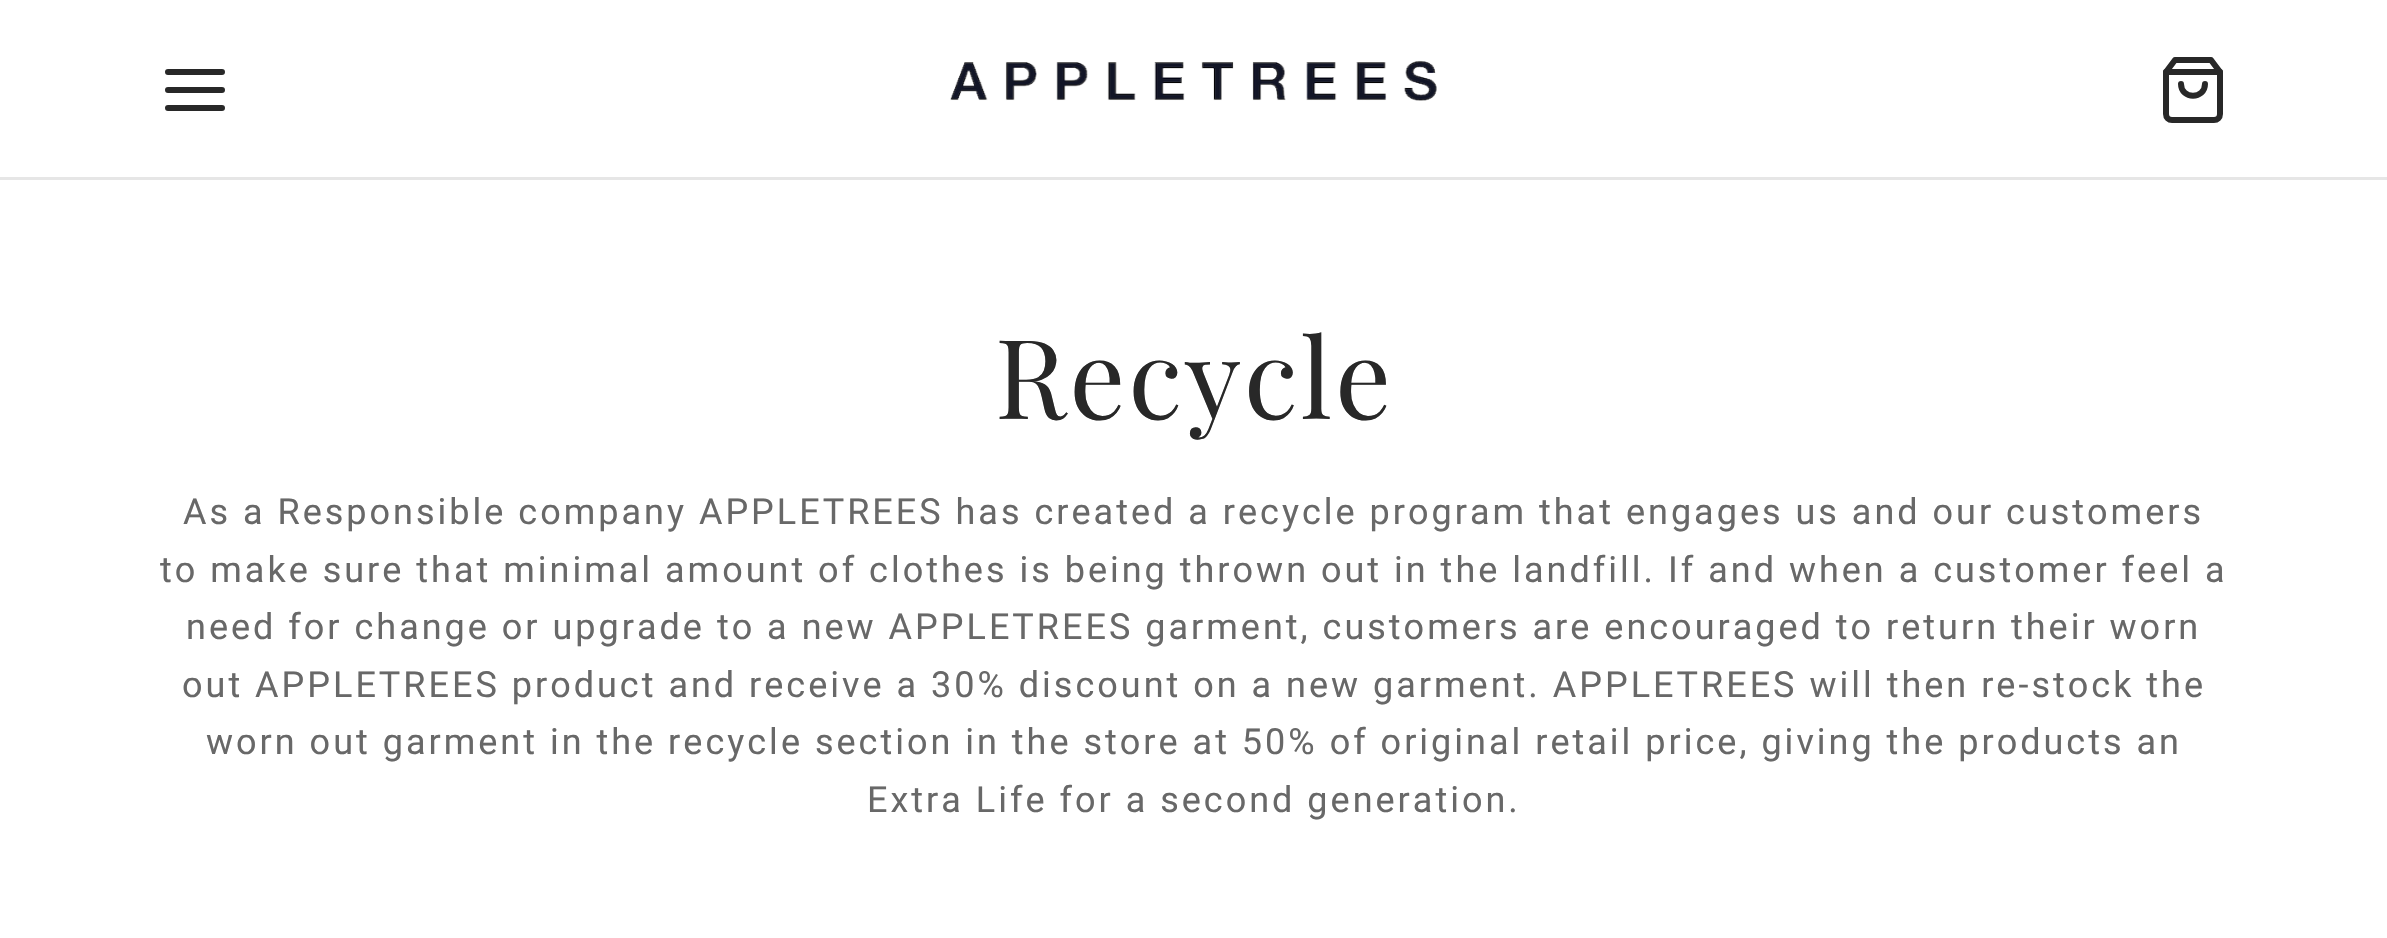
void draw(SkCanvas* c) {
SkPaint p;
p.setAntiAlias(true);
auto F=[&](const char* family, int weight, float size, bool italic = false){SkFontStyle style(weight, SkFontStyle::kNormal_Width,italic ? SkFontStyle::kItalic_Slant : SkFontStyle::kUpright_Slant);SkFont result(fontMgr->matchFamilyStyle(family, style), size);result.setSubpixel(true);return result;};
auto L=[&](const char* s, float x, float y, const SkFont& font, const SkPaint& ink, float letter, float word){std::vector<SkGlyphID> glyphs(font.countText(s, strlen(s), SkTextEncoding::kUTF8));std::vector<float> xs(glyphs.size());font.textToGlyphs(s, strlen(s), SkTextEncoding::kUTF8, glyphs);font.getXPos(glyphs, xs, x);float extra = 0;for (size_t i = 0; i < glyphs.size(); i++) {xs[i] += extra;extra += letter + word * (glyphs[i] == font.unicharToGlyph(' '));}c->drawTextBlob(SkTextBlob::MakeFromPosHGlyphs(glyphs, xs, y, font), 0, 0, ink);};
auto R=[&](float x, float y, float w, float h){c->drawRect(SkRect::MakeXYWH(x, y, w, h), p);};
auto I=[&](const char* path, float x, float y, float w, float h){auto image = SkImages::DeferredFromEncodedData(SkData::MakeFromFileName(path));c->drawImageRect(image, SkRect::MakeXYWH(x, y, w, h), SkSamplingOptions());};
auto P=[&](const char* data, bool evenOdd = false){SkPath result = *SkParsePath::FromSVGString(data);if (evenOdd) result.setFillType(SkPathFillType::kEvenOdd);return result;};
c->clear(0xffffffff);
p.setStroke(true);
p.setStrokeWidth(6);
p.setStrokeCap(SkPaint::kRound_Cap);
p.setStrokeJoin(SkPaint::kRound_Join);
p.setColor(0xff282828);
c->drawPath(P("M168 90h54m-54-18h54m-54 36h54"),p);
I("1.png",950,60,487,41);
c->drawPath(P("M2175 60l-9 12v42c0 3.5 2.5 6 6 6h42c3.5 0 6-2.5 6-6v-42l-9-12z"),p);
c->drawPath(P("M2166 72h54m-15 12c0 15.5-24 15.5-24 0"),p);
p.setStroke(false);
p.setColor(0xffe6e6e6);
R(0,177,2387,3);
auto f1 = F("Playfair Display",400,110.5);
p.setColor(0xff282828);
L("Recycle",995,419,f1,p,3,0);
auto f2 = F("Roboto",400,36);
p.setColor(0xff686868);
L("As a Responsible company APPLETREES has created a recycle program that engages us and our customers",183,524,f2,p,3,0);
L("to make sure that minimal amount of clothes is being thrown out in the landfill. If and when a customer feel a",160,582,f2,p,3,0);
L("need for change or upgrade to a new APPLETREES garment, customers are encouraged to return their worn",186,639,f2,p,3,0);
L("out APPLETREES product and receive a 30% discount on a new garment. APPLETREES will then re-stock the",182,697,f2,p,3,0);
L("worn out garment in the recycle section in the store at 50% of original retail price, giving the products an",206,754,f2,p,3,0);
L("Extra Life for a second generation.",867,812,f2,p,3,0);
}
